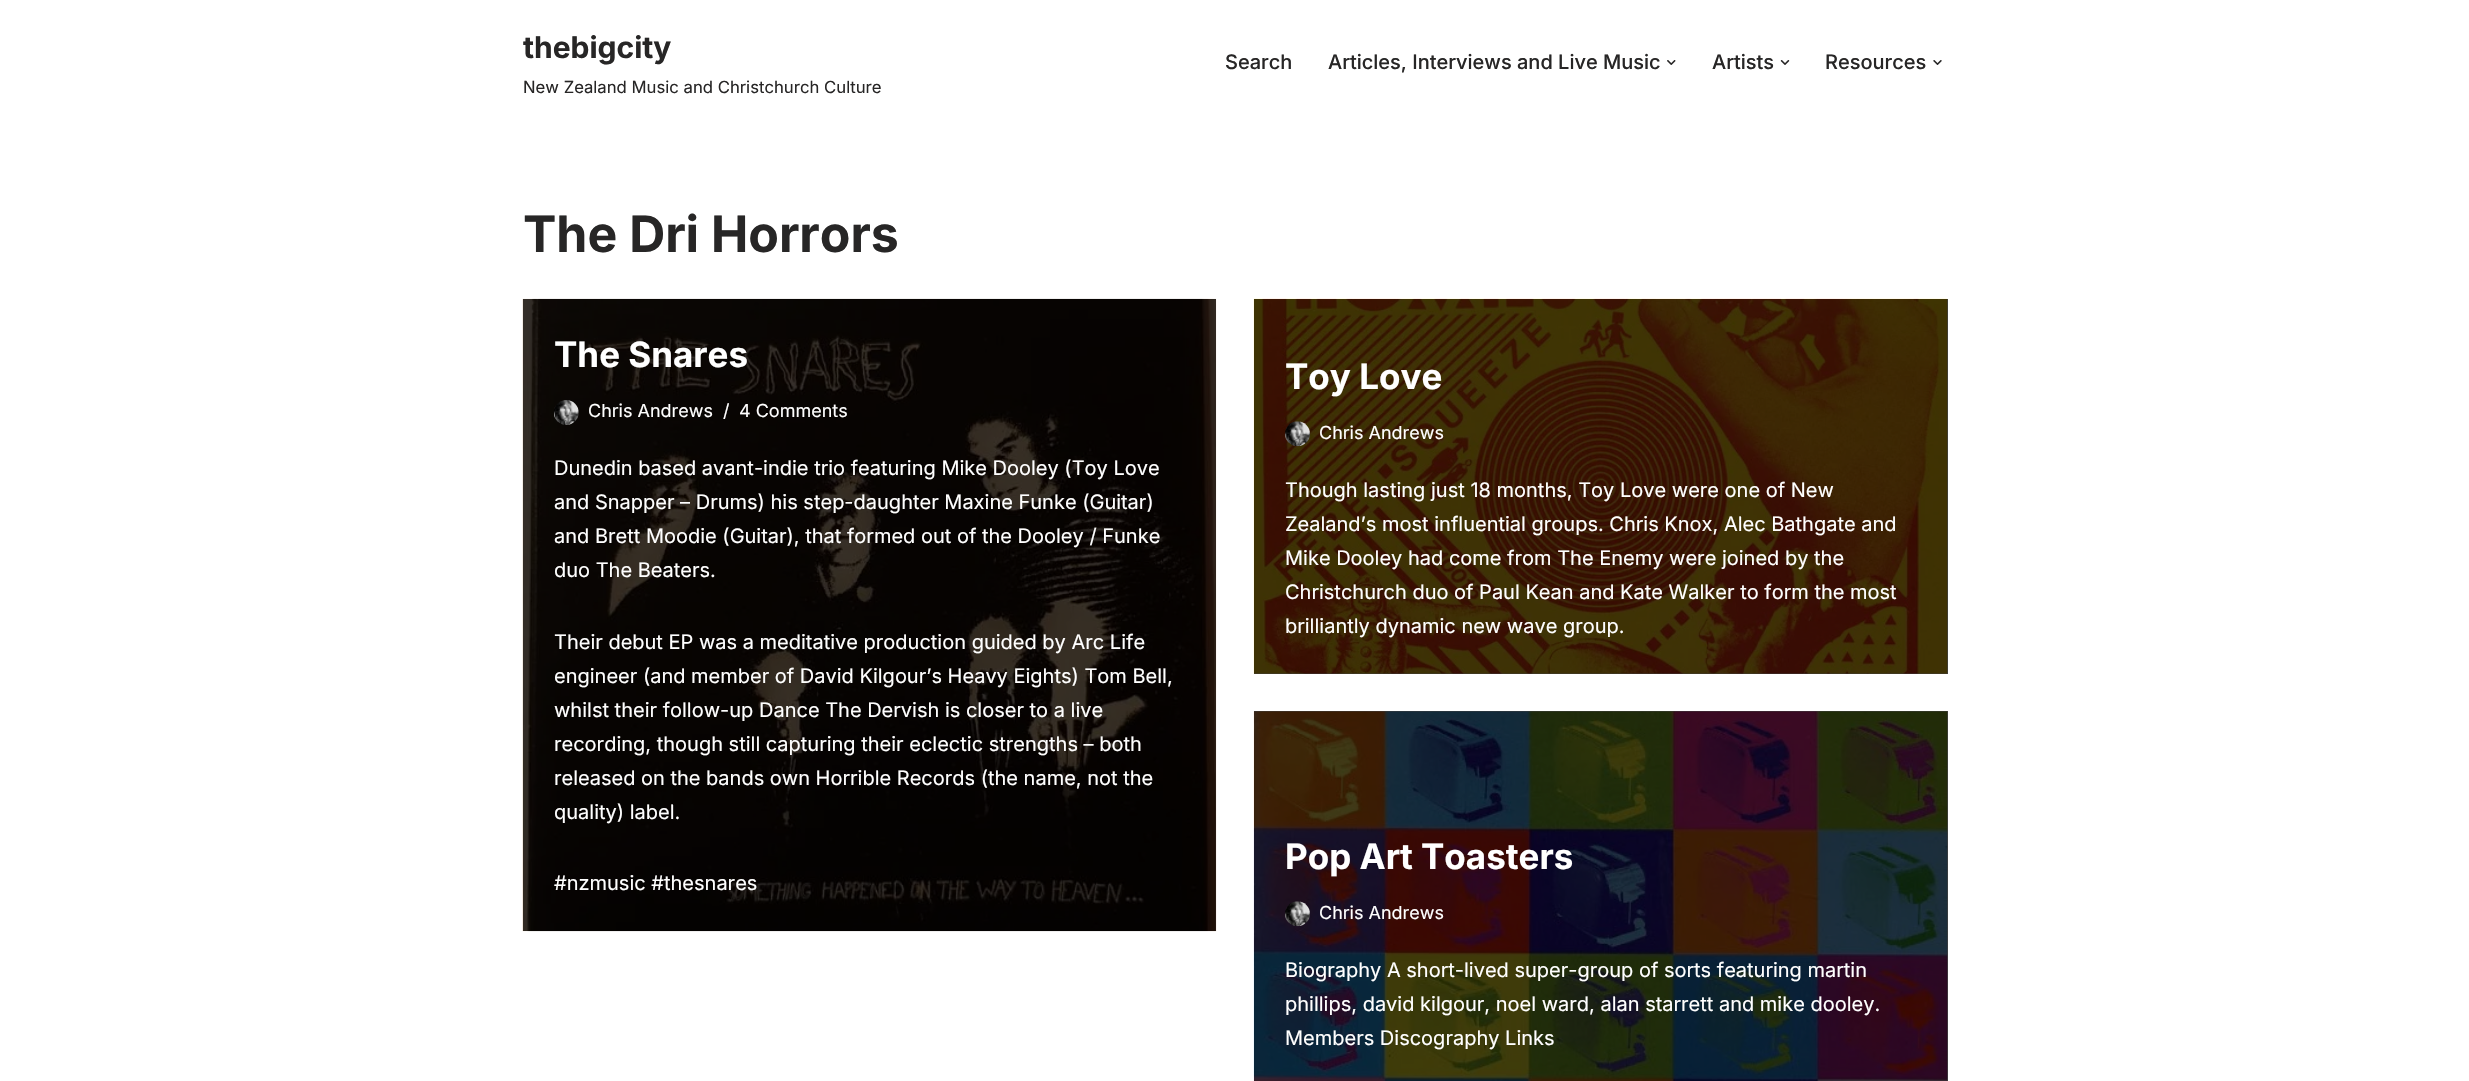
void draw(SkCanvas* c) {
SkPaint p;
p.setAntiAlias(true);
auto F=[&](const char* family, int weight, float size, bool italic = false){SkFontStyle style(weight, SkFontStyle::kNormal_Width,italic ? SkFontStyle::kItalic_Slant : SkFontStyle::kUpright_Slant);SkFont result(fontMgr->matchFamilyStyle(family, style), size);result.setSubpixel(true);return result;};
auto T=[&](const char* s, float x, float y, const SkFont& font){c->drawString(s, x, y, font, p);};
auto R=[&](float x, float y, float w, float h){c->drawRect(SkRect::MakeXYWH(x, y, w, h), p);};
auto I=[&](const char* path, float x, float y, float w, float h){auto image = SkImages::DeferredFromEncodedData(SkData::MakeFromFileName(path));c->drawImageRect(image, SkRect::MakeXYWH(x, y, w, h), SkSamplingOptions());};
c->clear(0xffffffff);
p.setColor(0xff404040);
R(1254,711,694,370);
R(1254,299,694,375);
auto f1 = F("Inter",700,30);
p.setColor(0xff272626);
T("thebigcity",523,58,f1);
auto f2 = F("Inter",400,16.7);
T("New Zealand Music and Christchurch Culture",523,93,f2);
auto f3 = F("Inter",500,20);
T("Search",1225,69,f3);
T("Articles, Interviews and Live Music",1328,69,f3);
I("1.png",1667,60,9,5);
T("Artists",1712,69,f3);
I("2.png",1780,60,10,5);
T("Resources",1825,69,f3);
I("3.png",1933,60,9,5);
auto f4 = F("Inter",700,50);
T("The Dri Horrors",523,252,f4);
I("4.png",522,298,695,634);
auto f5 = F("Inter",700,35);
p.setColor(0xffffffff);
T("The Snares",554,367,f5);
I("5.png",554,400,25,25);
auto f6 = F("Inter",400,18);
T("Chris Andrews",588,417,f6);
T("/",723,417,f6);
T("4 Comments",739,417,f6);
auto f7 = F("Inter",400,20);
T("Dunedin based avant-indie trio featuring Mike Dooley (Toy Love",554,475,f7);
T("and Snapper – Drums) his step-daughter Maxine Funke (Guitar)",554,509,f7);
T("and Brett Moodie (Guitar), that formed out of the Dooley / Funke",554,543,f7);
T("duo The Beaters.",554,577,f7);
T("Their debut EP was a meditative production guided by Arc Life",554,649,f7);
T("engineer (and member of David Kilgour’s Heavy Eights) Tom Bell,",554,683,f7);
T("whilst their follow-up Dance The Dervish is closer to a live",554,717,f7);
T("recording, though still capturing their eclectic strengths – both",554,751,f7);
T("released on the bands own Horrible Records (the name, not the",554,785,f7);
T("quality) label.",554,819,f7);
T("#nzmusic #thesnares",554,890,f7);
I("6.png",1253,298,695,376);
T("Toy Love",1285,389,f5);
I("7.png",1285,421,25,26);
T("Chris Andrews",1319,439,f6);
T("Though lasting just 18 months, Toy Love were one of New",1285,497,f7);
T("Zealand’s most influential groups. Chris Knox, Alec Bathgate and",1285,531,f7);
T("Mike Dooley had come from The Enemy were joined by the",1285,565,f7);
T("Christchurch duo of Paul Kean and Kate Walker to form the most",1285,599,f7);
T("brilliantly dynamic new wave group.",1285,633,f7);
I("8.png",1253,711,695,370);
T("Pop Art Toasters",1285,869,f5);
I("9.png",1285,901,25,26);
T("Chris Andrews",1319,919,f6);
T("Biography A short-lived super-group of sorts featuring martin",1285,977,f7);
T("phillips, david kilgour, noel ward, alan starrett and mike dooley.",1285,1011,f7);
T("Members Discography Links",1285,1045,f7);
}
